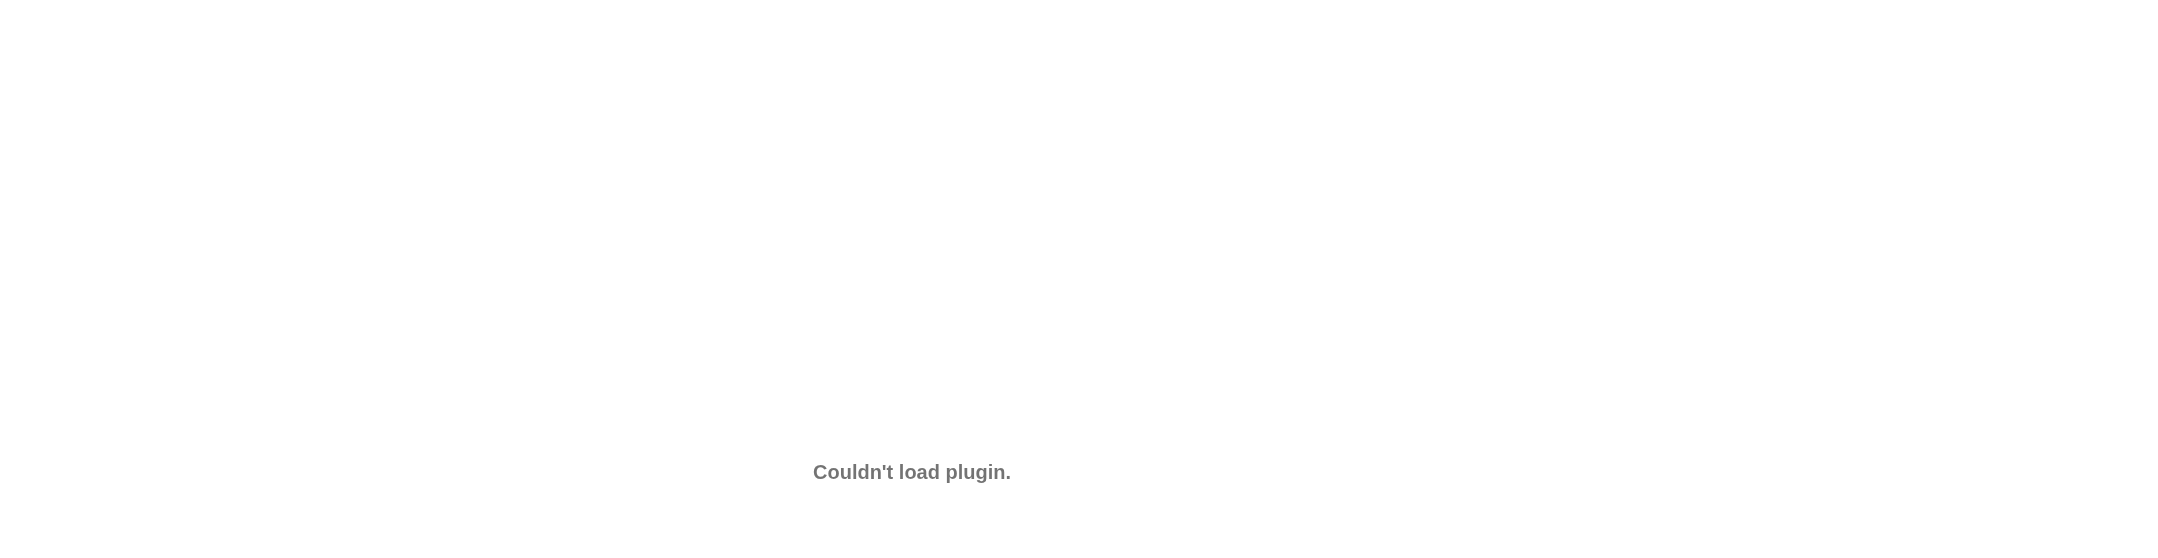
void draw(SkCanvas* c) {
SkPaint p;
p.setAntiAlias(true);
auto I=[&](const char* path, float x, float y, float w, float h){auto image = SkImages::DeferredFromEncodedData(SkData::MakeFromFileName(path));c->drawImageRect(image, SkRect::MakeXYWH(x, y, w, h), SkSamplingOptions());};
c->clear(0xffffffff);
I("1.png",813,464,197,19);
}
